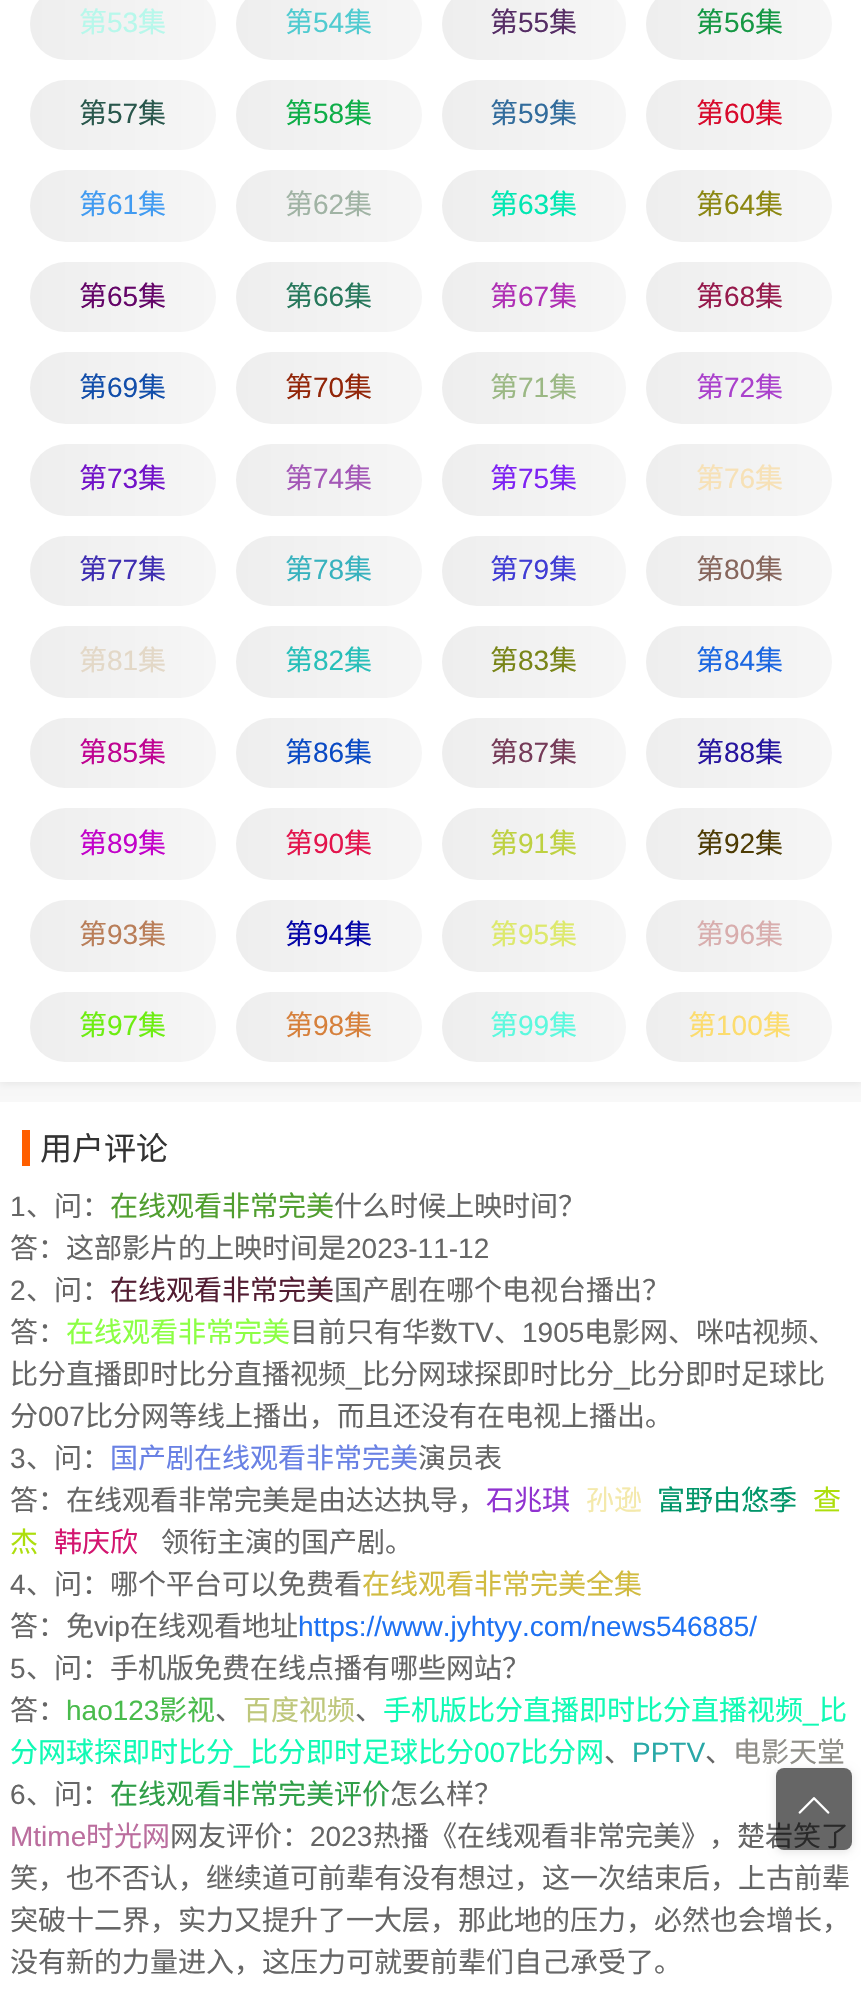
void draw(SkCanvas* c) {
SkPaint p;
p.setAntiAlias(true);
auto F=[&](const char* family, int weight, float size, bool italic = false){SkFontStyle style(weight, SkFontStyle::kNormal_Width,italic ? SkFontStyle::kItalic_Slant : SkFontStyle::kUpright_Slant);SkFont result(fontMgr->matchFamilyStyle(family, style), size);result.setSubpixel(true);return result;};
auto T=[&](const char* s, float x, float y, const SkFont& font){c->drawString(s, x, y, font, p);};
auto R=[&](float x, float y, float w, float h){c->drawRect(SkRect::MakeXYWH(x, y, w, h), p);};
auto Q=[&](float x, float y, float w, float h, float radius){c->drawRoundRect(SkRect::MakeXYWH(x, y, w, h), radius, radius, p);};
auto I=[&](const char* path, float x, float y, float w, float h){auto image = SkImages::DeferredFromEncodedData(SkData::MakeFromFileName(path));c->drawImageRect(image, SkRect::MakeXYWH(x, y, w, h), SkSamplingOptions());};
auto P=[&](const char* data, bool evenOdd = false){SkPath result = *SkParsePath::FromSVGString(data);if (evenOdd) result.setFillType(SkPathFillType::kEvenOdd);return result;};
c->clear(0xfff8f8f8);
p.setColor(0x12000000);
p.setMaskFilter(SkMaskFilter::MakeBlur(kNormal_SkBlurStyle, 4));
c->drawRect(SkRect::MakeXYWH(0,-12,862,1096),p);
p.setMaskFilter(nullptr);
p.setColor(0xffffffff);
R(0,0,861,1082);
{
const SkColor colors[] = {0xffeeeeee,0xfff6f6f6};
const float stops[] = {0,1};
const SkPoint ends[] = {{30,24}, {216,24}};
p.setShader(SkGradientShader::MakeLinear(ends, colors, stops, 2, SkTileMode::kClamp));
p.setAlpha(255);
}
Q(30,-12,186,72,36);
auto f1 = F("Noto Sans CJK SC",400,28);
p.setShader(nullptr);
p.setColor(0xffb7f8eb);
T("第",79,32,f1);
auto f2 = F("Liberation Sans",400,28);
T("53",107,32,f2);
T("集",138,32,f1);
{
const SkColor colors[] = {0xffeeeeee,0xfff6f6f6};
const float stops[] = {0,1};
const SkPoint ends[] = {{236,24}, {422,24}};
p.setShader(SkGradientShader::MakeLinear(ends, colors, stops, 2, SkTileMode::kClamp));
p.setAlpha(255);
}
Q(236,-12,186,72,36);
p.setShader(nullptr);
p.setColor(0xff50cbd0);
T("第",285,32,f1);
T("54",313,32,f2);
T("集",344,32,f1);
{
const SkColor colors[] = {0xffeeeeee,0xfff6f6f6};
const float stops[] = {0,1};
const SkPoint ends[] = {{442,24}, {626,24}};
p.setShader(SkGradientShader::MakeLinear(ends, colors, stops, 2, SkTileMode::kClamp));
p.setAlpha(255);
}
Q(442,-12,184,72,36);
p.setShader(nullptr);
p.setColor(0xff552d65);
T("第",490,32,f1);
T("55",518,32,f2);
T("集",549,32,f1);
{
const SkColor colors[] = {0xffeeeeee,0xfff6f6f6};
const float stops[] = {0,1};
const SkPoint ends[] = {{646,24}, {832,24}};
p.setShader(SkGradientShader::MakeLinear(ends, colors, stops, 2, SkTileMode::kClamp));
p.setAlpha(255);
}
Q(646,-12,186,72,36);
p.setShader(nullptr);
p.setColor(0xff159844);
T("第",696,32,f1);
T("56",724,32,f2);
T("集",755,32,f1);
{
const SkColor colors[] = {0xffeeeeee,0xfff6f6f6};
const float stops[] = {0,1};
const SkPoint ends[] = {{30,115}, {216,115}};
p.setShader(SkGradientShader::MakeLinear(ends, colors, stops, 2, SkTileMode::kClamp));
p.setAlpha(255);
}
Q(30,80,186,70,35);
p.setShader(nullptr);
p.setColor(0xff29574c);
T("第",79,123,f1);
T("57",107,123,f2);
T("集",138,123,f1);
{
const SkColor colors[] = {0xffeeeeee,0xfff6f6f6};
const float stops[] = {0,1};
const SkPoint ends[] = {{236,115}, {422,115}};
p.setShader(SkGradientShader::MakeLinear(ends, colors, stops, 2, SkTileMode::kClamp));
p.setAlpha(255);
}
Q(236,80,186,70,35);
p.setShader(nullptr);
p.setColor(0xff0eae48);
T("第",285,123,f1);
T("58",313,123,f2);
T("集",344,123,f1);
{
const SkColor colors[] = {0xffeeeeee,0xfff6f6f6};
const float stops[] = {0,1};
const SkPoint ends[] = {{442,115}, {626,115}};
p.setShader(SkGradientShader::MakeLinear(ends, colors, stops, 2, SkTileMode::kClamp));
p.setAlpha(255);
}
Q(442,80,184,70,35);
p.setShader(nullptr);
p.setColor(0xff326c9c);
T("第",490,123,f1);
T("59",518,123,f2);
T("集",549,123,f1);
{
const SkColor colors[] = {0xffeeeeee,0xfff6f6f6};
const float stops[] = {0,1};
const SkPoint ends[] = {{646,115}, {832,115}};
p.setShader(SkGradientShader::MakeLinear(ends, colors, stops, 2, SkTileMode::kClamp));
p.setAlpha(255);
}
Q(646,80,186,70,35);
p.setShader(nullptr);
p.setColor(0xffd80a2c);
T("第",696,123,f1);
T("60",724,123,f2);
T("集",755,123,f1);
{
const SkColor colors[] = {0xffeeeeee,0xfff6f6f6};
const float stops[] = {0,1};
const SkPoint ends[] = {{30,206}, {216,206}};
p.setShader(SkGradientShader::MakeLinear(ends, colors, stops, 2, SkTileMode::kClamp));
p.setAlpha(255);
}
Q(30,170,186,72,36);
p.setShader(nullptr);
p.setColor(0xff419bf1);
T("第",79,214,f1);
T("61",107,214,f2);
T("集",138,214,f1);
{
const SkColor colors[] = {0xffeeeeee,0xfff6f6f6};
const float stops[] = {0,1};
const SkPoint ends[] = {{236,206}, {422,206}};
p.setShader(SkGradientShader::MakeLinear(ends, colors, stops, 2, SkTileMode::kClamp));
p.setAlpha(255);
}
Q(236,170,186,72,36);
p.setShader(nullptr);
p.setColor(0xffa0b3a4);
T("第",285,214,f1);
T("62",313,214,f2);
T("集",344,214,f1);
{
const SkColor colors[] = {0xffeeeeee,0xfff6f6f6};
const float stops[] = {0,1};
const SkPoint ends[] = {{442,206}, {626,206}};
p.setShader(SkGradientShader::MakeLinear(ends, colors, stops, 2, SkTileMode::kClamp));
p.setAlpha(255);
}
Q(442,170,184,72,36);
p.setShader(nullptr);
p.setColor(0xff01e7b2);
T("第",490,214,f1);
T("63",518,214,f2);
T("集",549,214,f1);
{
const SkColor colors[] = {0xffeeeeee,0xfff6f6f6};
const float stops[] = {0,1};
const SkPoint ends[] = {{646,206}, {832,206}};
p.setShader(SkGradientShader::MakeLinear(ends, colors, stops, 2, SkTileMode::kClamp));
p.setAlpha(255);
}
Q(646,170,186,72,36);
p.setShader(nullptr);
p.setColor(0xff8b8711);
T("第",696,214,f1);
T("64",724,214,f2);
T("集",755,214,f1);
{
const SkColor colors[] = {0xffeeeeee,0xfff6f6f6};
const float stops[] = {0,1};
const SkPoint ends[] = {{30,297}, {216,297}};
p.setShader(SkGradientShader::MakeLinear(ends, colors, stops, 2, SkTileMode::kClamp));
p.setAlpha(255);
}
Q(30,262,186,70,35);
p.setShader(nullptr);
p.setColor(0xff640568);
T("第",79,306,f1);
T("65",107,306,f2);
T("集",138,306,f1);
{
const SkColor colors[] = {0xffeeeeee,0xfff6f6f6};
const float stops[] = {0,1};
const SkPoint ends[] = {{236,297}, {422,297}};
p.setShader(SkGradientShader::MakeLinear(ends, colors, stops, 2, SkTileMode::kClamp));
p.setAlpha(255);
}
Q(236,262,186,70,35);
p.setShader(nullptr);
p.setColor(0xff27785c);
T("第",285,306,f1);
T("66",313,306,f2);
T("集",344,306,f1);
{
const SkColor colors[] = {0xffeeeeee,0xfff6f6f6};
const float stops[] = {0,1};
const SkPoint ends[] = {{442,297}, {626,297}};
p.setShader(SkGradientShader::MakeLinear(ends, colors, stops, 2, SkTileMode::kClamp));
p.setAlpha(255);
}
Q(442,262,184,70,35);
p.setShader(nullptr);
p.setColor(0xffaf2fb4);
T("第",490,306,f1);
T("67",518,306,f2);
T("集",549,306,f1);
{
const SkColor colors[] = {0xffeeeeee,0xfff6f6f6};
const float stops[] = {0,1};
const SkPoint ends[] = {{646,297}, {832,297}};
p.setShader(SkGradientShader::MakeLinear(ends, colors, stops, 2, SkTileMode::kClamp));
p.setAlpha(255);
}
Q(646,262,186,70,35);
p.setShader(nullptr);
p.setColor(0xff961a4c);
T("第",696,306,f1);
T("68",724,306,f2);
T("集",755,306,f1);
{
const SkColor colors[] = {0xffeeeeee,0xfff6f6f6};
const float stops[] = {0,1};
const SkPoint ends[] = {{30,388}, {216,388}};
p.setShader(SkGradientShader::MakeLinear(ends, colors, stops, 2, SkTileMode::kClamp));
p.setAlpha(255);
}
Q(30,352,186,72,36);
p.setShader(nullptr);
p.setColor(0xff124eaa);
T("第",79,397,f1);
T("69",107,397,f2);
T("集",138,397,f1);
{
const SkColor colors[] = {0xffeeeeee,0xfff6f6f6};
const float stops[] = {0,1};
const SkPoint ends[] = {{236,388}, {422,388}};
p.setShader(SkGradientShader::MakeLinear(ends, colors, stops, 2, SkTileMode::kClamp));
p.setAlpha(255);
}
Q(236,352,186,72,36);
p.setShader(nullptr);
p.setColor(0xff922609);
T("第",285,397,f1);
T("70",313,397,f2);
T("集",344,397,f1);
{
const SkColor colors[] = {0xffeeeeee,0xfff6f6f6};
const float stops[] = {0,1};
const SkPoint ends[] = {{442,388}, {626,388}};
p.setShader(SkGradientShader::MakeLinear(ends, colors, stops, 2, SkTileMode::kClamp));
p.setAlpha(255);
}
Q(442,352,184,72,36);
p.setShader(nullptr);
p.setColor(0xff9bb884);
T("第",490,397,f1);
T("71",518,397,f2);
T("集",549,397,f1);
{
const SkColor colors[] = {0xffeeeeee,0xfff6f6f6};
const float stops[] = {0,1};
const SkPoint ends[] = {{646,388}, {832,388}};
p.setShader(SkGradientShader::MakeLinear(ends, colors, stops, 2, SkTileMode::kClamp));
p.setAlpha(255);
}
Q(646,352,186,72,36);
p.setShader(nullptr);
p.setColor(0xffaa41cc);
T("第",696,397,f1);
T("72",724,397,f2);
T("集",755,397,f1);
{
const SkColor colors[] = {0xffeeeeee,0xfff6f6f6};
const float stops[] = {0,1};
const SkPoint ends[] = {{30,480}, {216,480}};
p.setShader(SkGradientShader::MakeLinear(ends, colors, stops, 2, SkTileMode::kClamp));
p.setAlpha(255);
}
Q(30,444,186,72,36);
p.setShader(nullptr);
p.setColor(0xff7213c8);
T("第",79,488,f1);
T("73",107,488,f2);
T("集",138,488,f1);
{
const SkColor colors[] = {0xffeeeeee,0xfff6f6f6};
const float stops[] = {0,1};
const SkPoint ends[] = {{236,480}, {422,480}};
p.setShader(SkGradientShader::MakeLinear(ends, colors, stops, 2, SkTileMode::kClamp));
p.setAlpha(255);
}
Q(236,444,186,72,36);
p.setShader(nullptr);
p.setColor(0xffa357b6);
T("第",285,488,f1);
T("74",313,488,f2);
T("集",344,488,f1);
{
const SkColor colors[] = {0xffeeeeee,0xfff6f6f6};
const float stops[] = {0,1};
const SkPoint ends[] = {{442,480}, {626,480}};
p.setShader(SkGradientShader::MakeLinear(ends, colors, stops, 2, SkTileMode::kClamp));
p.setAlpha(255);
}
Q(442,444,184,72,36);
p.setShader(nullptr);
p.setColor(0xff7d22f3);
T("第",490,488,f1);
T("75",518,488,f2);
T("集",549,488,f1);
{
const SkColor colors[] = {0xffeeeeee,0xfff6f6f6};
const float stops[] = {0,1};
const SkPoint ends[] = {{646,480}, {832,480}};
p.setShader(SkGradientShader::MakeLinear(ends, colors, stops, 2, SkTileMode::kClamp));
p.setAlpha(255);
}
Q(646,444,186,72,36);
p.setShader(nullptr);
p.setColor(0xfff7e1b6);
T("第",696,488,f1);
T("76",724,488,f2);
T("集",755,488,f1);
{
const SkColor colors[] = {0xffeeeeee,0xfff6f6f6};
const float stops[] = {0,1};
const SkPoint ends[] = {{30,571}, {216,571}};
p.setShader(SkGradientShader::MakeLinear(ends, colors, stops, 2, SkTileMode::kClamp));
p.setAlpha(255);
}
Q(30,536,186,70,35);
p.setShader(nullptr);
p.setColor(0xff3e2db1);
T("第",79,579,f1);
T("77",107,579,f2);
T("集",138,579,f1);
{
const SkColor colors[] = {0xffeeeeee,0xfff6f6f6};
const float stops[] = {0,1};
const SkPoint ends[] = {{236,571}, {422,571}};
p.setShader(SkGradientShader::MakeLinear(ends, colors, stops, 2, SkTileMode::kClamp));
p.setAlpha(255);
}
Q(236,536,186,70,35);
p.setShader(nullptr);
p.setColor(0xff37b2be);
T("第",285,579,f1);
T("78",313,579,f2);
T("集",344,579,f1);
{
const SkColor colors[] = {0xffeeeeee,0xfff6f6f6};
const float stops[] = {0,1};
const SkPoint ends[] = {{442,571}, {626,571}};
p.setShader(SkGradientShader::MakeLinear(ends, colors, stops, 2, SkTileMode::kClamp));
p.setAlpha(255);
}
Q(442,536,184,70,35);
p.setShader(nullptr);
p.setColor(0xff403cd4);
T("第",490,579,f1);
T("79",518,579,f2);
T("集",549,579,f1);
{
const SkColor colors[] = {0xffeeeeee,0xfff6f6f6};
const float stops[] = {0,1};
const SkPoint ends[] = {{646,571}, {832,571}};
p.setShader(SkGradientShader::MakeLinear(ends, colors, stops, 2, SkTileMode::kClamp));
p.setAlpha(255);
}
Q(646,536,186,70,35);
p.setShader(nullptr);
p.setColor(0xff86665c);
T("第",696,579,f1);
T("80",724,579,f2);
T("集",755,579,f1);
{
const SkColor colors[] = {0xffeeeeee,0xfff6f6f6};
const float stops[] = {0,1};
const SkPoint ends[] = {{30,662}, {216,662}};
p.setShader(SkGradientShader::MakeLinear(ends, colors, stops, 2, SkTileMode::kClamp));
p.setAlpha(255);
}
Q(30,626,186,72,36);
p.setShader(nullptr);
p.setColor(0xffe3d8c7);
T("第",79,670,f1);
T("81",107,670,f2);
T("集",138,670,f1);
{
const SkColor colors[] = {0xffeeeeee,0xfff6f6f6};
const float stops[] = {0,1};
const SkPoint ends[] = {{236,662}, {422,662}};
p.setShader(SkGradientShader::MakeLinear(ends, colors, stops, 2, SkTileMode::kClamp));
p.setAlpha(255);
}
Q(236,626,186,72,36);
p.setShader(nullptr);
p.setColor(0xff27bfb9);
T("第",285,670,f1);
T("82",313,670,f2);
T("集",344,670,f1);
{
const SkColor colors[] = {0xffeeeeee,0xfff6f6f6};
const float stops[] = {0,1};
const SkPoint ends[] = {{442,662}, {626,662}};
p.setShader(SkGradientShader::MakeLinear(ends, colors, stops, 2, SkTileMode::kClamp));
p.setAlpha(255);
}
Q(442,626,184,72,36);
p.setShader(nullptr);
p.setColor(0xff798518);
T("第",490,670,f1);
T("83",518,670,f2);
T("集",549,670,f1);
{
const SkColor colors[] = {0xffeeeeee,0xfff6f6f6};
const float stops[] = {0,1};
const SkPoint ends[] = {{646,662}, {832,662}};
p.setShader(SkGradientShader::MakeLinear(ends, colors, stops, 2, SkTileMode::kClamp));
p.setAlpha(255);
}
Q(646,626,186,72,36);
p.setShader(nullptr);
p.setColor(0xff1b67e1);
T("第",696,670,f1);
T("84",724,670,f2);
T("集",755,670,f1);
{
const SkColor colors[] = {0xffeeeeee,0xfff6f6f6};
const float stops[] = {0,1};
const SkPoint ends[] = {{30,753}, {216,753}};
p.setShader(SkGradientShader::MakeLinear(ends, colors, stops, 2, SkTileMode::kClamp));
p.setAlpha(255);
}
Q(30,718,186,70,35);
p.setShader(nullptr);
p.setColor(0xffbf0391);
T("第",79,762,f1);
T("85",107,762,f2);
T("集",138,762,f1);
{
const SkColor colors[] = {0xffeeeeee,0xfff6f6f6};
const float stops[] = {0,1};
const SkPoint ends[] = {{236,753}, {422,753}};
p.setShader(SkGradientShader::MakeLinear(ends, colors, stops, 2, SkTileMode::kClamp));
p.setAlpha(255);
}
Q(236,718,186,70,35);
p.setShader(nullptr);
p.setColor(0xff0a4ac4);
T("第",285,762,f1);
T("86",313,762,f2);
T("集",344,762,f1);
{
const SkColor colors[] = {0xffeeeeee,0xfff6f6f6};
const float stops[] = {0,1};
const SkPoint ends[] = {{442,753}, {626,753}};
p.setShader(SkGradientShader::MakeLinear(ends, colors, stops, 2, SkTileMode::kClamp));
p.setAlpha(255);
}
Q(442,718,184,70,35);
p.setShader(nullptr);
p.setColor(0xff753b58);
T("第",490,762,f1);
T("87",518,762,f2);
T("集",549,762,f1);
{
const SkColor colors[] = {0xffeeeeee,0xfff6f6f6};
const float stops[] = {0,1};
const SkPoint ends[] = {{646,753}, {832,753}};
p.setShader(SkGradientShader::MakeLinear(ends, colors, stops, 2, SkTileMode::kClamp));
p.setAlpha(255);
}
Q(646,718,186,70,35);
p.setShader(nullptr);
p.setColor(0xff26149e);
T("第",696,762,f1);
T("88",724,762,f2);
T("集",755,762,f1);
{
const SkColor colors[] = {0xffeeeeee,0xfff6f6f6};
const float stops[] = {0,1};
const SkPoint ends[] = {{30,844}, {216,844}};
p.setShader(SkGradientShader::MakeLinear(ends, colors, stops, 2, SkTileMode::kClamp));
p.setAlpha(255);
}
Q(30,808,186,72,36);
p.setShader(nullptr);
p.setColor(0xffc202c9);
T("第",79,853,f1);
T("89",107,853,f2);
T("集",138,853,f1);
{
const SkColor colors[] = {0xffeeeeee,0xfff6f6f6};
const float stops[] = {0,1};
const SkPoint ends[] = {{236,844}, {422,844}};
p.setShader(SkGradientShader::MakeLinear(ends, colors, stops, 2, SkTileMode::kClamp));
p.setAlpha(255);
}
Q(236,808,186,72,36);
p.setShader(nullptr);
p.setColor(0xffe3154d);
T("第",285,853,f1);
T("90",313,853,f2);
T("集",344,853,f1);
{
const SkColor colors[] = {0xffeeeeee,0xfff6f6f6};
const float stops[] = {0,1};
const SkPoint ends[] = {{442,844}, {626,844}};
p.setShader(SkGradientShader::MakeLinear(ends, colors, stops, 2, SkTileMode::kClamp));
p.setAlpha(255);
}
Q(442,808,184,72,36);
p.setShader(nullptr);
p.setColor(0xffbed141);
T("第",490,853,f1);
T("91",518,853,f2);
T("集",549,853,f1);
{
const SkColor colors[] = {0xffeeeeee,0xfff6f6f6};
const float stops[] = {0,1};
const SkPoint ends[] = {{646,844}, {832,844}};
p.setShader(SkGradientShader::MakeLinear(ends, colors, stops, 2, SkTileMode::kClamp));
p.setAlpha(255);
}
Q(646,808,186,72,36);
p.setShader(nullptr);
p.setColor(0xff4e3c04);
T("第",696,853,f1);
T("92",724,853,f2);
T("集",755,853,f1);
{
const SkColor colors[] = {0xffeeeeee,0xfff6f6f6};
const float stops[] = {0,1};
const SkPoint ends[] = {{30,936}, {216,936}};
p.setShader(SkGradientShader::MakeLinear(ends, colors, stops, 2, SkTileMode::kClamp));
p.setAlpha(255);
}
Q(30,900,186,72,36);
p.setShader(nullptr);
p.setColor(0xffb97e59);
T("第",79,944,f1);
T("93",107,944,f2);
T("集",138,944,f1);
{
const SkColor colors[] = {0xffeeeeee,0xfff6f6f6};
const float stops[] = {0,1};
const SkPoint ends[] = {{236,936}, {422,936}};
p.setShader(SkGradientShader::MakeLinear(ends, colors, stops, 2, SkTileMode::kClamp));
p.setAlpha(255);
}
Q(236,900,186,72,36);
p.setShader(nullptr);
p.setColor(0xff0506a7);
T("第",285,944,f1);
T("94",313,944,f2);
T("集",344,944,f1);
{
const SkColor colors[] = {0xffeeeeee,0xfff6f6f6};
const float stops[] = {0,1};
const SkPoint ends[] = {{442,936}, {626,936}};
p.setShader(SkGradientShader::MakeLinear(ends, colors, stops, 2, SkTileMode::kClamp));
p.setAlpha(255);
}
Q(442,900,184,72,36);
p.setShader(nullptr);
p.setColor(0xffdde96c);
T("第",490,944,f1);
T("95",518,944,f2);
T("集",549,944,f1);
{
const SkColor colors[] = {0xffeeeeee,0xfff6f6f6};
const float stops[] = {0,1};
const SkPoint ends[] = {{646,936}, {832,936}};
p.setShader(SkGradientShader::MakeLinear(ends, colors, stops, 2, SkTileMode::kClamp));
p.setAlpha(255);
}
Q(646,900,186,72,36);
p.setShader(nullptr);
p.setColor(0xffd8adad);
T("第",696,944,f1);
T("96",724,944,f2);
T("集",755,944,f1);
{
const SkColor colors[] = {0xffeeeeee,0xfff6f6f6};
const float stops[] = {0,1};
const SkPoint ends[] = {{30,1027}, {216,1027}};
p.setShader(SkGradientShader::MakeLinear(ends, colors, stops, 2, SkTileMode::kClamp));
p.setAlpha(255);
}
Q(30,992,186,70,35);
p.setShader(nullptr);
p.setColor(0xff6ded11);
T("第",79,1035,f1);
T("97",107,1035,f2);
T("集",138,1035,f1);
{
const SkColor colors[] = {0xffeeeeee,0xfff6f6f6};
const float stops[] = {0,1};
const SkPoint ends[] = {{236,1027}, {422,1027}};
p.setShader(SkGradientShader::MakeLinear(ends, colors, stops, 2, SkTileMode::kClamp));
p.setAlpha(255);
}
Q(236,992,186,70,35);
p.setShader(nullptr);
p.setColor(0xffd6803b);
T("第",285,1035,f1);
T("98",313,1035,f2);
T("集",344,1035,f1);
{
const SkColor colors[] = {0xffeeeeee,0xfff6f6f6};
const float stops[] = {0,1};
const SkPoint ends[] = {{442,1027}, {626,1027}};
p.setShader(SkGradientShader::MakeLinear(ends, colors, stops, 2, SkTileMode::kClamp));
p.setAlpha(255);
}
Q(442,992,184,70,35);
p.setShader(nullptr);
p.setColor(0xff5cf9de);
T("第",490,1035,f1);
T("99",518,1035,f2);
T("集",549,1035,f1);
{
const SkColor colors[] = {0xffeeeeee,0xfff6f6f6};
const float stops[] = {0,1};
const SkPoint ends[] = {{646,1027}, {832,1027}};
p.setShader(SkGradientShader::MakeLinear(ends, colors, stops, 2, SkTileMode::kClamp));
p.setAlpha(255);
}
Q(646,992,186,70,35);
p.setShader(nullptr);
p.setColor(0xfffcdc6e);
T("第",688,1035,f1);
T("100",716,1035,f2);
T("集",763,1035,f1);
p.setColor(0xffffffff);
R(0,1102,861,888);
p.setColor(0xffff5f00);
R(22,1130,8,36);
auto f3 = F("Noto Sans CJK SC",400,32);
p.setColor(0xff333333);
T("用户评论",40,1160,f3);
p.setColor(0xff666666);
T("1",10,1216,f2);
T("、问：",26,1216,f1);
p.setColor(0xff509e2f);
T("在线观看非常完美",110,1216,f1);
p.setColor(0xff666666);
T("什么时候上映时间？",334,1216,f1);
T("答：这部影片的上映时间是",10,1258,f1);
T("2023-11-12",346,1258,f2);
T("2",10,1300,f2);
T("、问：",26,1300,f1);
p.setColor(0xff521d32);
T("在线观看非常完美",110,1300,f1);
p.setColor(0xff666666);
T("国产剧在哪个电视台播出？",334,1300,f1);
T("答：",10,1342,f1);
p.setColor(0xff8cff45);
T("在线观看非常完美",66,1342,f1);
p.setColor(0xff666666);
T("目前只有华数",290,1342,f1);
T("TV",458,1342,f2);
T("、",494,1342,f1);
T("1905",522,1342,f2);
T("电影网、咪咕视频、",584,1342,f1);
T("比分直播即时比分直播视频",10,1384,f1);
T("比分网球探即时比分",362,1384,f1);
T("比分即时足球比",629,1384,f1);
T("_",346,1384,f2);
T("_",614,1384,f2);
T("分",10,1426,f1);
T("007",38,1426,f2);
T("比分网等线上播出，而且还没有在电视上播出。",85,1426,f1);
T("3",10,1468,f2);
T("、问：",26,1468,f1);
p.setColor(0xff6981e4);
T("国产剧在线观看非常完美",110,1468,f1);
p.setColor(0xff666666);
T("演员表",418,1468,f1);
T("答：在线观看非常完美是由达达执导，",10,1510,f1);
p.setColor(0xff9033d0);
T("石兆琪",486,1510,f1);
p.setColor(0xfff4e9ab);
T("孙逊",586,1510,f1);
p.setColor(0xff019569);
T("富野由悠季",657,1510,f1);
p.setColor(0xffadde0c);
T("查",813,1510,f1);
T("杰",10,1552,f1);
p.setColor(0xffd3156f);
T("韩庆欣",54,1552,f1);
p.setColor(0xff666666);
T("领衔主演的国产剧。",161,1552,f1);
T("4",10,1594,f2);
T("、问：哪个平台可以免费看",26,1594,f1);
p.setColor(0xffd1bb41);
T("在线观看非常完美全集",362,1594,f1);
p.setColor(0xff666666);
T("答：免",10,1636,f1);
T("vip",94,1636,f2);
T("在线观看地址",130,1636,f1);
p.setColor(0xff1d71f3);
T("https://www.jyhtyy.com/news546885/",298,1636,f2);
p.setColor(0xff666666);
T("5",10,1678,f2);
T("、问：手机版免费在线点播有哪些网站？",26,1678,f1);
T("答：",10,1720,f1);
p.setColor(0xff49bb4c);
T("hao123",66,1720,f2);
T("影视",159,1720,f1);
p.setColor(0xff666666);
T("、",215,1720,f1);
p.setColor(0xffbec77b);
T("百度视频",243,1720,f1);
p.setColor(0xff666666);
T("、",355,1720,f1);
p.setColor(0xff10fab4);
T("手机版比分直播即时比分直播视频",383,1720,f1);
T("比",819,1720,f1);
T("_",803,1720,f2);
T("分网球探即时比分",10,1762,f1);
T("比分即时足球比分",250,1762,f1);
T("007",474,1762,f2);
T("比分网",520,1762,f1);
p.setColor(0xff666666);
T("、",604,1762,f1);
p.setColor(0xff29a8a7);
T("PPTV",632,1762,f2);
p.setColor(0xff666666);
T("、",705,1762,f1);
p.setColor(0xff8f8e88);
T("电影天堂",733,1762,f1);
p.setColor(0xff10fab4);
T("_",234,1762,f2);
p.setColor(0xff666666);
T("6",10,1804,f2);
T("、问：",26,1804,f1);
p.setColor(0xff2f9e47);
T("在线观看非常完美评价",110,1804,f1);
p.setColor(0xff666666);
T("怎么样？",390,1804,f1);
p.setColor(0xffbb6e9e);
T("Mtime",10,1846,f2);
T("时光网",86,1846,f1);
p.setColor(0xff666666);
T("网友评价：",170,1846,f1);
T("2023",310,1846,f2);
T("热播《在线观看非常完美》，楚岩笑了",373,1846,f1);
T("笑，也不否认，继续道可前辈有没有想过，这一次结束后，上古前辈",10,1888,f1);
T("突破十二界，实力又提升了一大层，那此地的压力，必然也会增长，",10,1930,f1);
T("没有新的力量进入，这压力可就要前辈们自己承受了。",10,1972,f1);
c->save();
c->clipPath(P("M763 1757h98v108h-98zm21 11h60c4.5 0 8 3.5 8 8v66c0 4.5-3.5 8-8 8h-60c-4.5 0-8-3.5-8-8v-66c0-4.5 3.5-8 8-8z",true),true);
p.setColor(0x1a000000);
p.setMaskFilter(SkMaskFilter::MakeBlur(kNormal_SkBlurStyle, 4));
c->drawRoundRect(SkRect::MakeXYWH(776,1770,76,82),8,8,p);
p.setMaskFilter(nullptr);
c->restore();
p.setColor(0x99000000);
Q(776,1768,76,82,8);
I("1.png",798,1797,32,17);
}
